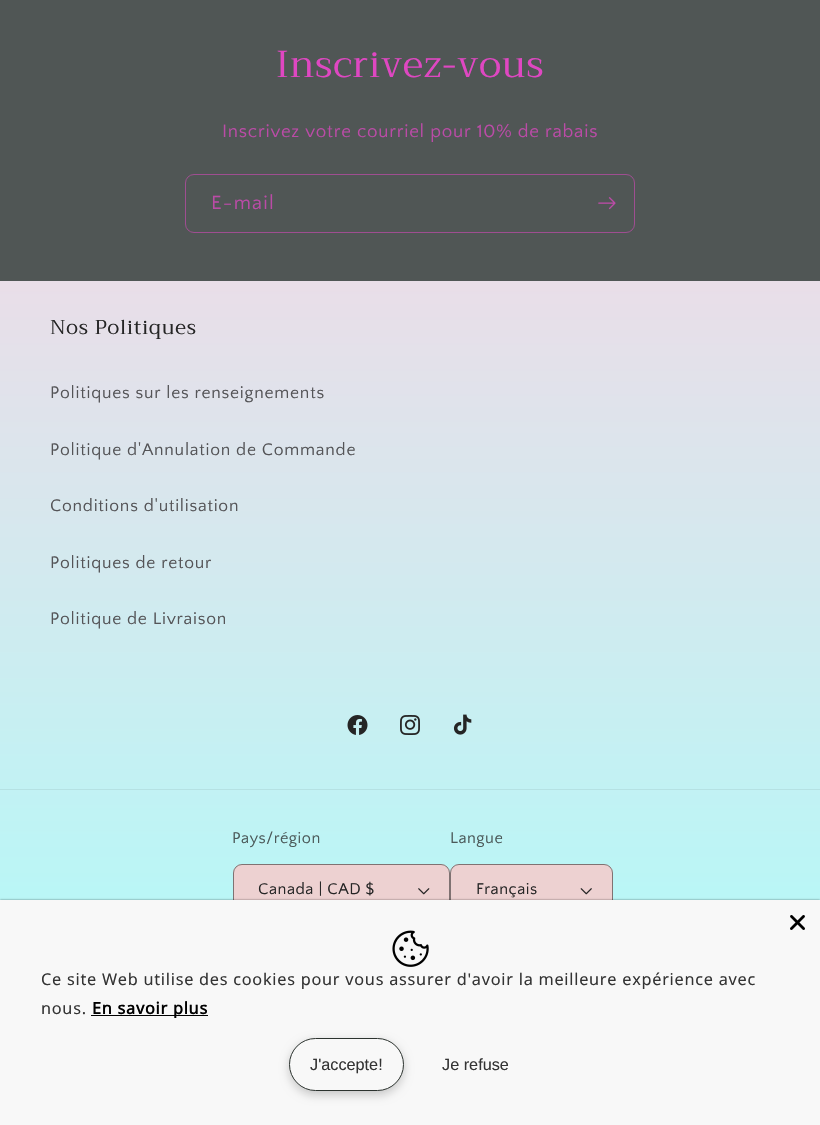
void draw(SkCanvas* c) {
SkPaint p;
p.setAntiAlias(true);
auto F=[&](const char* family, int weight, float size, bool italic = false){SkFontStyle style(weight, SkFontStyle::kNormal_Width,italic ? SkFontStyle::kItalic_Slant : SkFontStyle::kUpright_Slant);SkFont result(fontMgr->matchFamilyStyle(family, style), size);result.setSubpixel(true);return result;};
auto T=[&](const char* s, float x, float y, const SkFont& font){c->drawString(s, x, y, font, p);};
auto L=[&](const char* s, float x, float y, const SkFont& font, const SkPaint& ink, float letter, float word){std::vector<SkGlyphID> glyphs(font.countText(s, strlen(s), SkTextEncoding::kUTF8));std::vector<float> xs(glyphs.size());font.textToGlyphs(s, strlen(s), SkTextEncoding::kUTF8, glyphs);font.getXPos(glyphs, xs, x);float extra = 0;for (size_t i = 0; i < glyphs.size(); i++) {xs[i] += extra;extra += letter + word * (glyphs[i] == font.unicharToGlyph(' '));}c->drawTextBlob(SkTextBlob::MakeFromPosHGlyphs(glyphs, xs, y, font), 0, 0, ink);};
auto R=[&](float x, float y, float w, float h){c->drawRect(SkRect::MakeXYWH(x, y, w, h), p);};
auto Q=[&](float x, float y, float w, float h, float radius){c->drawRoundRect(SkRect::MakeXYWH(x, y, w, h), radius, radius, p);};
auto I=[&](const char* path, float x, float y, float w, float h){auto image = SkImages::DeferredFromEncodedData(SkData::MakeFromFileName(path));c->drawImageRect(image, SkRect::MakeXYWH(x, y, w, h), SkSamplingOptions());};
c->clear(0xffffffff);
{
const SkColor colors[] = {0xffffd3e2,0xffa8fffb};
const float stops[] = {0,1};
const SkPoint ends[] = {{410,0}, {410,1125}};
p.setShader(SkGradientShader::MakeLinear(ends, colors, stops, 2, SkTileMode::kClamp));
p.setAlpha(255);
}
R(0,281,820,619);
p.setShader(nullptr);
p.setColor(0xff505655);
R(0,0,820,281);
auto f1 = F("Trirong",400,37.5);
p.setColor(0xffdf47c2);
L("Inscrivez-vous",276,77,f1,p,.75,0);
auto f2 = F("Quattrocento Sans",400,18.75);
p.setColor(0xffbb4ba7);
L("Inscrivez votre courriel pour 10% de rabais",222,137,f2,p,.75,0);
p.setStroke(true);
p.setStrokeWidth(1);
p.setColor(0xff9f4e91);
c->drawRoundRect(SkRect::MakeXYWH(185.5,174.5,449,58),8.5,8.5,p);
auto f3 = F("Quattrocento Sans",400,20);
p.setStroke(false);
p.setColor(0xffbb4ba7);
L("E-mail",211,209,f3,p,1.25,0);
I("1.png",598,197,18,13);
auto f4 = F("Trirong",400,20);
p.setColor(0xff252525);
L("Nos Politiques",50,334,f4,p,.75,0);
auto f5 = F("Quattrocento Sans",400,17.5);
p.setColor(0xff545457);
L("Politiques sur les renseignements",50,398,f5,p,.75,0);
L("Politique d'Annulation de Commande",50,455,f5,p,.75,0);
L("Conditions d'utilisation",50,511,f5,p,.75,0);
L("Politiques de retour",50,568,f5,p,.75,0);
L("Politique de Livraison",50,624,f5,p,.75,0);
I("2.png",347,715,21,20);
I("3.png",400,715,20,20);
I("4.png",453,714,19,21);
p.setColor(0xffb5e2e3);
R(0,789,820,1);
auto f6 = F("Quattrocento Sans",400,16.25);
p.setColor(0xff4b5959);
L("Pays/région",232,843,f6,p,.5,0);
p.setColor(0xffedd1d1);
Q(233,864,217,52,9);
I("5.png",418,888,12,7);
p.setStroke(true);
p.setColor(0x8c252525);
c->drawRoundRect(SkRect::MakeXYWH(233.5,864.5,216,51),8.5,8.5,p);
p.setStroke(false);
p.setColor(0xff252525);
L("Canada | CAD $",258,894,f6,p,.5,0);
p.setColor(0xff4b5959);
L("Langue",450,843,f6,p,.5,0);
p.setColor(0xffedd1d1);
Q(450,864,163,52,9);
I("6.png",580,888,12,7);
p.setStroke(true);
p.setColor(0x8c252525);
c->drawRoundRect(SkRect::MakeXYWH(450.5,864.5,162,51),8.5,8.5,p);
p.setStroke(false);
p.setColor(0xff252525);
L("Français",476,894,f6,p,.5,0);
p.setColor(0x80000000);
p.setMaskFilter(SkMaskFilter::MakeBlur(kNormal_SkBlurStyle, 1));
c->drawRect(SkRect::MakeXYWH(0,900,820,225),p);
p.setMaskFilter(nullptr);
p.setColor(0xfff8f8f8);
R(0,900,820,225);
I("7.png",790,915,15,15);
I("8.png",392,930,37,37);
auto f7 = F("Noto Sans",400,16.25);
p.setColor(0xff343434);
L("Ce site Web utilise des cookies pour vous assurer d'avoir la meilleure expérience avec",41,985,f7,p,.75,0);
L("nous.",41,1014,f7,p,.75,0);
p.setColor(0xff000000);
R(91,1015,117,1);
auto f8 = F("Noto Sans",700,16.25);
L("En savoir plus",92,1014,f8,p,.75,0);
p.setColor(0x33000000);
p.setMaskFilter(SkMaskFilter::MakeBlur(kNormal_SkBlurStyle, 5));
c->drawRoundRect(SkRect::MakeXYWH(289,1041,115,54),27,27,p);
p.setMaskFilter(nullptr);
p.setColor(0xfff8f8f8);
c->drawRoundRect(SkRect::MakeXYWH(289.5,1038.5,114,52),26,26,p);
p.setStroke(true);
p.setColor(0xff2c332f);
c->drawRoundRect(SkRect::MakeXYWH(289.5,1038.5,114,52),26,26,p);
auto f9 = F("Liberation Sans",400,16.25);
p.setStroke(false);
p.setColor(0xff343434);
T("J'accepte!",310,1070,f9);
T("Je refuse",442,1070,f9);
}
